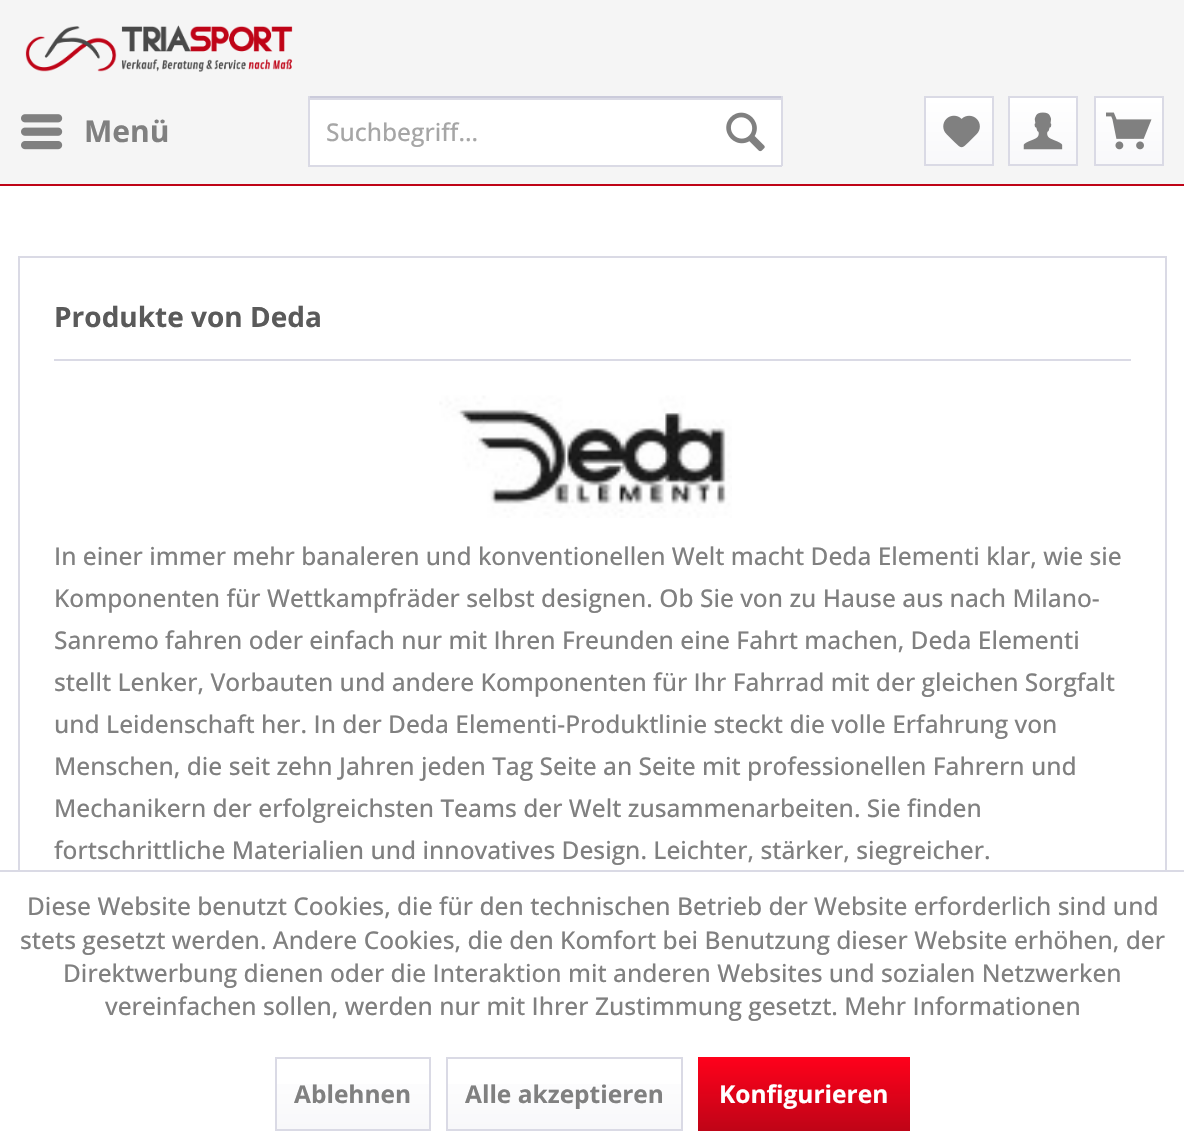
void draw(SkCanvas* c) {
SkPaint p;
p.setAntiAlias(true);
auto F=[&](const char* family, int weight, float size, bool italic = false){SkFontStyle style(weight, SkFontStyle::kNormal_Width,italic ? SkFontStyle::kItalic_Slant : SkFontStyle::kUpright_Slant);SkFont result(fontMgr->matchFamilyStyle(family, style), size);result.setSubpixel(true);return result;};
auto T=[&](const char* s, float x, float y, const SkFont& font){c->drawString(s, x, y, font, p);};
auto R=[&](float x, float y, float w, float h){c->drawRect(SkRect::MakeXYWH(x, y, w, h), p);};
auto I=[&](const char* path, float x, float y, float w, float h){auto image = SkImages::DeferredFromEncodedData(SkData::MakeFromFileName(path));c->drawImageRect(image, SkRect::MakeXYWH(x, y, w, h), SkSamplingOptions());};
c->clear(0xffffffff);
p.setColor(0xfff5f5f5);
R(0,0,1184,184);
p.setColor(0xffbf0417);
R(0,184,1184,2);
I("1.png",25,25,268,47);
I("2.png",21,114,42,36);
auto f1 = F("Open Sans",700,30);
p.setColor(0xff808080);
T("Menü",84,142,f1);
p.setColor(0xffffffff);
R(310,100,471,65);
p.setColor(0xffdadae5);
R(310,98,471,2);
p.setColor(0xffcbcbdb);
R(308,96,474,2);
p.setColor(0xffdadae5);
R(781,96,2,70);
R(308,165,474,2);
R(308,96,2,70);
auto f2 = F("Open Sans",500,24.5);
p.setColor(0xffa6a6a6);
T("Suchbegriff...",326,141,f2);
I("3.png",726,112,39,40);
{
const SkColor colors[] = {0xffffffff,0xfff8f8fa};
const float stops[] = {0,1};
const SkPoint ends[] = {{959,98}, {959,165}};
p.setShader(SkGradientShader::MakeLinear(ends, colors, stops, 2, SkTileMode::kClamp));
p.setAlpha(255);
}
R(926,98,66,66);
p.setStroke(true);
p.setStrokeWidth(2);
p.setShader(nullptr);
p.setColor(0xffdadae5);
c->drawRect(SkRect::MakeXYWH(925,97,68,68),p);
I("4.png",943,115,37,33);
p.setStroke(false);
{
const SkColor colors[] = {0xffffffff,0xfff8f8fa};
const float stops[] = {0,1};
const SkPoint ends[] = {{1043,98}, {1043,165}};
p.setShader(SkGradientShader::MakeLinear(ends, colors, stops, 2, SkTileMode::kClamp));
p.setAlpha(255);
}
R(1010,98,66,66);
p.setStroke(true);
p.setShader(nullptr);
p.setColor(0xffdadae5);
c->drawRect(SkRect::MakeXYWH(1009,97,68,68),p);
I("5.png",1023,112,40,38);
p.setStroke(false);
{
const SkColor colors[] = {0xffffffff,0xfff8f8fa};
const float stops[] = {0,1};
const SkPoint ends[] = {{1129,98}, {1129,165}};
p.setShader(SkGradientShader::MakeLinear(ends, colors, stops, 2, SkTileMode::kClamp));
p.setAlpha(255);
}
R(1096,98,66,66);
p.setStroke(true);
p.setShader(nullptr);
p.setColor(0xffdadae5);
c->drawRect(SkRect::MakeXYWH(1095,97,68,68),p);
I("6.png",1106,112,46,38);
c->drawRect(SkRect::MakeXYWH(19,257,1147,685),p);
p.setStroke(false);
R(54,359,1077,2);
auto f3 = F("Open Sans",700,28);
p.setColor(0xff5a5a5a);
T("Produkte von Deda",54,327,f3);
I("7.png",439,395,293,123);
p.setColor(0xff808080);
T("In einer immer mehr banaleren und konventionellen Welt macht Deda Elementi klar, wie sie",54,565,f2);
T("Komponenten für Wettkampfräder selbst designen. Ob Sie von zu Hause aus nach Milano-",54,607,f2);
T("Sanremo fahren oder einfach nur mit Ihren Freunden eine Fahrt machen, Deda Elementi",54,649,f2);
T("stellt Lenker, Vorbauten und andere Komponenten für Ihr Fahrrad mit der gleichen Sorgfalt",54,691,f2);
T("und Leidenschaft her. In der Deda Elementi-Produktlinie steckt die volle Erfahrung von",54,733,f2);
T("Menschen, die seit zehn Jahren jeden Tag Seite an Seite mit professionellen Fahrern und",54,775,f2);
T("Mechanikern der erfolgreichsten Teams der Welt zusammenarbeiten. Sie finden",54,817,f2);
T("fortschrittliche Materialien und innovatives Design. Leichter, stärker, siegreicher.",54,859,f2);
p.setColor(0xffffffff);
R(18,872,1149,71);
p.setColor(0xffdadae5);
R(0,870,1184,2);
p.setColor(0xff808080);
T("Diese Website benutzt Cookies, die für den technischen Betrieb der Website erforderlich sind und",27,915,f2);
T("stets gesetzt werden. Andere Cookies, die den Komfort bei Benutzung dieser Website erhöhen, der",20,949,f2);
T("Direktwerbung dienen oder die Interaktion mit anderen Websites und sozialen Netzwerken",63,982,f2);
T("vereinfachen sollen, werden nur mit Ihrer Zustimmung gesetzt. Mehr Informationen",105,1015,f2);
{
const SkColor colors[] = {0xffffffff,0xfff8f8fa};
const float stops[] = {0,1};
const SkPoint ends[] = {{353,1059}, {353,1129}};
p.setShader(SkGradientShader::MakeLinear(ends, colors, stops, 2, SkTileMode::kClamp));
p.setAlpha(255);
}
R(277,1084,152,45);
p.setStroke(true);
p.setShader(nullptr);
p.setColor(0xffdadae5);
c->drawRect(SkRect::MakeXYWH(276,1058,154,72),p);
auto f4 = F("Open Sans",700,24.5);
p.setStroke(false);
p.setColor(0xff808080);
T("Ablehnen",294,1103,f4);
{
const SkColor colors[] = {0xffffffff,0xfff8f8fa};
const float stops[] = {0,1};
const SkPoint ends[] = {{564,1059}, {564,1129}};
p.setShader(SkGradientShader::MakeLinear(ends, colors, stops, 2, SkTileMode::kClamp));
p.setAlpha(255);
}
R(448,1084,233,45);
p.setStroke(true);
p.setShader(nullptr);
p.setColor(0xffdadae5);
c->drawRect(SkRect::MakeXYWH(447,1058,235,72),p);
p.setStroke(false);
p.setColor(0xff808080);
T("Alle akzeptieren",465,1103,f4);
{
const SkColor colors[] = {0xffff011b,0xffbf0417};
const float stops[] = {0,1};
const SkPoint ends[] = {{804,1057}, {804,1131}};
p.setShader(SkGradientShader::MakeLinear(ends, colors, stops, 2, SkTileMode::kClamp));
p.setAlpha(255);
}
R(698,1057,212,74);
p.setShader(nullptr);
p.setColor(0xffffffff);
T("Konfigurieren",719,1103,f4);
}
